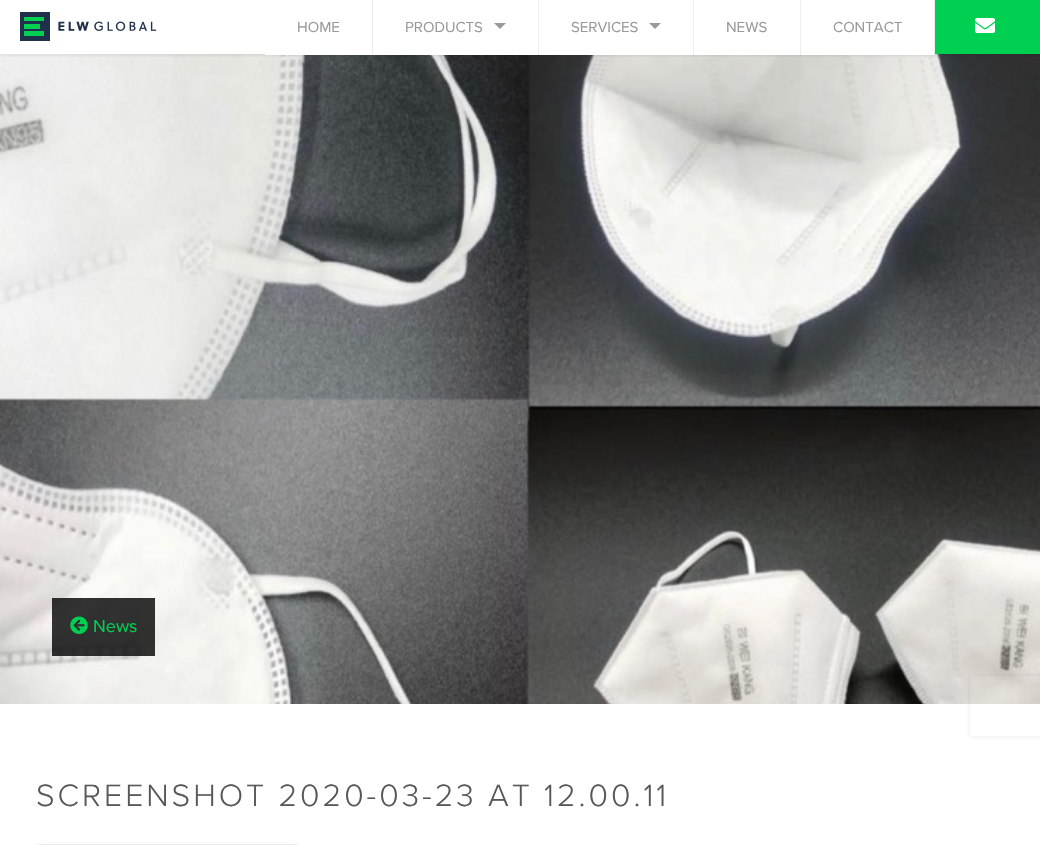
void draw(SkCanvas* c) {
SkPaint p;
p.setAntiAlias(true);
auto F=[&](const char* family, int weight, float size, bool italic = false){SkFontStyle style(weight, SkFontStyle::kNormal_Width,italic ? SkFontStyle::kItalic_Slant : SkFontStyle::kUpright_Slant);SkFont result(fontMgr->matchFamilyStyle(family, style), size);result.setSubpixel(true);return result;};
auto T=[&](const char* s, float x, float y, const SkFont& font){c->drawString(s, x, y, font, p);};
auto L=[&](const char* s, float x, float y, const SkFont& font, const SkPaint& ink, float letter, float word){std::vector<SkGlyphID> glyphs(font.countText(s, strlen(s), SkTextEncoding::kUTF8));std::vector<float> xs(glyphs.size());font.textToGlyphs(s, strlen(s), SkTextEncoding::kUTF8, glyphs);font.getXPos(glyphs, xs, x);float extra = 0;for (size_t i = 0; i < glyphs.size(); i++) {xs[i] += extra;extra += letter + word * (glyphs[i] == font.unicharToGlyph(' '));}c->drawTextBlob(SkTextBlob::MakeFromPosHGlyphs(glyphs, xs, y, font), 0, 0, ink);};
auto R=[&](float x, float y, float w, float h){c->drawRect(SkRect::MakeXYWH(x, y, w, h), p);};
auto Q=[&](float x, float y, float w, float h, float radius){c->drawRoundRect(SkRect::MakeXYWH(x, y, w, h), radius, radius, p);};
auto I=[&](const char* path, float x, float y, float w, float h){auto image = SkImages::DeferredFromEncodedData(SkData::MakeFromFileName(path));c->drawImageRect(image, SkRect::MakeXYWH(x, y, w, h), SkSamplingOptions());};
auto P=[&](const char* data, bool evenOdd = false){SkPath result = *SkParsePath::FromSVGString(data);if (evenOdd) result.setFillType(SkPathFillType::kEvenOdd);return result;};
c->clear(0xffffffff);
I("3.png",0,54,1040,650);
c->save();
c->clipRect(SkRect::MakeXYWH(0,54,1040,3));
p.setColor(0x1a000000);
p.setMaskFilter(SkMaskFilter::MakeBlur(kNormal_SkBlurStyle, 2.5));
c->drawRect(SkRect::MakeXYWH(0,1,1040,54),p);
p.setMaskFilter(nullptr);
c->restore();
I("1.png",20,12,137,29);
p.setColor(0xffffffff);
R(265,54,107,1);
p.setColor(0xffededed);
R(372,0,1,55);
auto f1 = F("Proxima Nova",400,15);
p.setColor(0xff999999);
T("HOME",297,32,f1);
p.setColor(0xffffffff);
R(373,54,165,1);
p.setColor(0xffededed);
R(538,0,1,55);
p.setColor(0xff999999);
T("PRODUCTS",405,32,f1);
c->drawPath(P("M494 23h12l-6 6z"),p);
p.setColor(0xffffffff);
R(539,54,154,1);
p.setColor(0xffededed);
R(693,0,1,55);
p.setColor(0xff999999);
T("SERVICES",571,32,f1);
c->drawPath(P("M649 23h12l-6 6z"),p);
p.setColor(0xffffffff);
R(694,54,106,1);
p.setColor(0xffededed);
R(800,0,1,55);
p.setColor(0xff999999);
T("NEWS",726,32,f1);
p.setColor(0xffffffff);
R(801,54,133,1);
p.setColor(0xffededed);
R(934,0,1,55);
p.setColor(0xff999999);
T("CONTACT",833,32,f1);
p.setColor(0xff00d052);
R(935,0,105,54);
I("2.png",975,18,20,15);
p.setColor(0xcc000000);
R(52,598,103,58);
I("4.png",70,616,18,18);
auto f2 = F("Proxima Nova",400,18);
p.setColor(0xff00d052);
T("News",93,632,f2);
auto f3 = F("Proxima Nova",300,32);
p.setColor(0xff575759);
L("SCREENSHOT 2020-03-23 AT 12.00.11",36,806,f3,p,3,0);
p.setColor(0xffe6eff1);
Q(36,844,263,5,4);
c->save();
c->clipPath(P("M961 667h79v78h-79zm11 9h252c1 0 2 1 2 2v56c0 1-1 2-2 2h-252c-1 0-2-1-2-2v-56c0-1 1-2 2-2z",true),true);
p.setColor(0x33808080);
p.setMaskFilter(SkMaskFilter::MakeBlur(kNormal_SkBlurStyle, 2.5));
c->drawRoundRect(SkRect::MakeXYWH(970,676,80,60),2,2,p);
p.setMaskFilter(nullptr);
c->restore();
}
